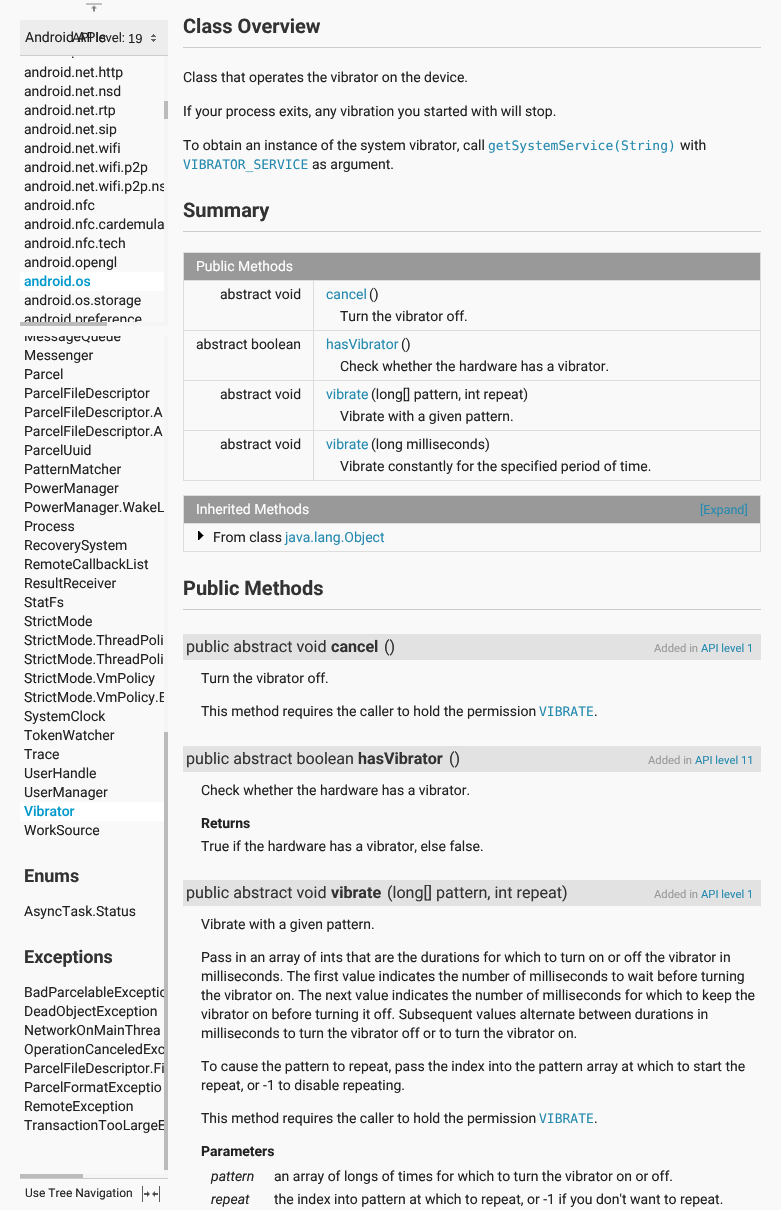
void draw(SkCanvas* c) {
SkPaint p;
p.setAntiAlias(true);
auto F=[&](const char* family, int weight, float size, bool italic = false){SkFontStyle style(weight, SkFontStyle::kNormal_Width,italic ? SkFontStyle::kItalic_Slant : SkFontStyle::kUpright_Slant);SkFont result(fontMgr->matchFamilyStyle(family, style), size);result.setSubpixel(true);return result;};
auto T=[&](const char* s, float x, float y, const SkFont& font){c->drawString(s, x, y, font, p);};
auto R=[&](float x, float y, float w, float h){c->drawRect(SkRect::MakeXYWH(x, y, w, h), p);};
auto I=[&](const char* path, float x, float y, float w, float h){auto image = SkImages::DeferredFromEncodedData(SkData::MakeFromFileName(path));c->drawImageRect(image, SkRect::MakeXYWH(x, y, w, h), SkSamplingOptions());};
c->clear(0xfff9f9f9);
I("1.png",86,3,16,9);
p.setColor(0xffededed);
R(20,20,148,35);
p.setColor(0xffcccccc);
R(20,55,148,1);
auto f1 = F("Roboto",400,13);
p.setColor(0xff222222);
T("API level:",72,42,f1);
auto f2 = F("Roboto",400,14);
T("Android APIs",25,42,f2);
I("2.png",151,34,5,8);
auto f3 = F("Liberation Sans",400,13);
T("19",128,43,f3);
T(".",71,58,f2);
T("android.net.http",24,77,f2);
T("android.net.nsd",24,96,f2);
T("android.net.rtp",24,115,f2);
T("android.net.sip",24,134,f2);
T("android.net.wifi",24,153,f2);
T("android.net.wifi.p2p",24,172,f2);
T("android.net.wifi.p2p.ns",24,191,f2);
T("android.nfc",24,210,f2);
T("android.nfc.cardemula",24,229,f2);
T("android.nfc.tech",24,248,f2);
T("android.opengl",24,267,f2);
p.setColor(0xffffffff);
R(20,272,144,19);
auto f4 = F("Roboto",500,14);
p.setColor(0xff0099cc);
T("android.os",24,286,f4);
p.setColor(0xff222222);
T("android.os.storage",24,305,f2);
c->save();
c->clipRect(SkRect::MakeXYWH(20,56,148,270));
T("android.preference",24,324,f2);
c->restore();
p.setColor(0xfff5f5f5);
R(164,56,4,270);
p.setColor(0xffbbbbbb);
R(164,101,4,18);
p.setColor(0xfff5f5f5);
R(107,322,61,4);
p.setColor(0xffbbbbbb);
R(20,322,87,4);
c->save();
c->clipRect(SkRect::MakeXYWH(20,336,148,842));
p.setColor(0xff222222);
T("MessageQueue",24,341,f2);
c->restore();
T("Messenger",24,360,f2);
T("Parcel",24,379,f2);
T("ParcelFileDescriptor",24,398,f2);
T("ParcelFileDescriptor.A",24,417,f2);
T("ParcelFileDescriptor.A",24,436,f2);
T("ParcelUuid",24,455,f2);
T("PatternMatcher",24,474,f2);
T("PowerManager",24,493,f2);
T("PowerManager.WakeL",24,512,f2);
T("Process",24,531,f2);
T("RecoverySystem",24,550,f2);
T("RemoteCallbackList",24,569,f2);
T("ResultReceiver",24,588,f2);
T("StatFs",24,607,f2);
T("StrictMode",24,626,f2);
T("StrictMode.ThreadPoli",24,645,f2);
T("StrictMode.ThreadPoli",24,664,f2);
T("StrictMode.VmPolicy",24,683,f2);
T("StrictMode.VmPolicy.B",24,702,f2);
T("SystemClock",24,721,f2);
T("TokenWatcher",24,740,f2);
T("Trace",24,759,f2);
T("UserHandle",24,778,f2);
T("UserManager",24,797,f2);
p.setColor(0xffffffff);
R(20,802,144,19);
p.setColor(0xff0099cc);
T("Vibrator",24,816,f4);
p.setColor(0xff222222);
T("WorkSource",24,835,f2);
auto f5 = F("Roboto",700,18);
p.setColor(0xff333333);
T("Enums",24,882,f5);
p.setColor(0xff222222);
T("AsyncTask.Status",24,916,f2);
p.setColor(0xff333333);
T("Exceptions",24,963,f5);
p.setColor(0xff222222);
T("BadParcelableExceptio",24,997,f2);
T("DeadObjectException",24,1016,f2);
T("NetworkOnMainThrea",24,1035,f2);
T("OperationCanceledExc",24,1054,f2);
T("ParcelFileDescriptor.Fi",24,1073,f2);
T("ParcelFormatExceptio",24,1092,f2);
T("RemoteException",24,1111,f2);
T("TransactionTooLargeE",24,1130,f2);
p.setColor(0xfff5f5f5);
R(164,336,4,842);
p.setColor(0xffbbbbbb);
R(164,732,4,438);
p.setColor(0xfff5f5f5);
R(83,1174,85,4);
p.setColor(0xffbbbbbb);
R(20,1174,63,4);
p.setColor(0xffcccccc);
R(20,1178,148,1);
auto f6 = F("Roboto",400,12);
p.setColor(0xff222222);
T("Use Tree Navigation",25,1197,f6);
I("3.png",142,1186,18,16);
auto f7 = F("Roboto",700,20);
p.setColor(0xff333333);
T("Class Overview",183,33,f7);
p.setColor(0xffcccccc);
R(183,47,578,1);
p.setColor(0xff222222);
T("Class that operates the vibrator on the device.",183,82,f2);
T("If your process exits, any vibration you started with will stop.",183,116,f2);
T("To obtain an instance of the system vibrator, call",183,150,f2);
auto f8 = F("DejaVu Sans Mono",400,13);
p.setColor(0xff258aaf);
T("getSystemService(String)",488,150,f8);
p.setColor(0xff222222);
T("with",680,150,f2);
p.setColor(0xff258aaf);
T("VIBRATOR_SERVICE",183,169,f8);
p.setColor(0xff222222);
T("as argument.",312,169,f2);
p.setColor(0xff333333);
T("Summary",183,217,f7);
p.setColor(0xffcccccc);
R(183,231,578,1);
p.setColor(0xff999999);
R(184,253,576,27);
p.setColor(0xffdddddd);
R(183,252,578,1);
R(313,280,448,1);
R(313,330,448,1);
R(313,380,448,1);
R(313,430,448,1);
R(760,430,1,51);
R(760,380,1,51);
R(760,330,1,51);
R(760,280,1,51);
R(760,252,1,29);
R(313,480,448,1);
R(313,430,1,51);
R(183,430,131,1);
R(313,380,1,51);
R(183,380,131,1);
R(313,330,1,51);
R(183,330,131,1);
R(313,280,1,51);
R(183,280,131,1);
R(183,480,131,1);
R(183,430,1,51);
R(183,380,1,51);
R(183,330,1,51);
R(183,280,1,51);
R(183,252,1,29);
p.setColor(0xffffffff);
T("Public Methods",196,271,f2);
p.setColor(0xff222222);
T("abstract void",220,299,f2);
p.setColor(0xff258aaf);
T("cancel",326,299,f2);
p.setColor(0xff222222);
T("()",369,299,f2);
T("Turn the vibrator off.",340,321,f2);
T("abstract boolean",196,349,f2);
p.setColor(0xff258aaf);
T("hasVibrator",326,349,f2);
p.setColor(0xff222222);
T("()",401,349,f2);
T("Check whether the hardware has a vibrator.",340,371,f2);
T("abstract void",220,399,f2);
p.setColor(0xff258aaf);
T("vibrate",326,399,f2);
p.setColor(0xff222222);
T("(long[] pattern, int repeat)",371,399,f2);
T("Vibrate with a given pattern.",340,421,f2);
T("abstract void",220,449,f2);
p.setColor(0xff258aaf);
T("vibrate",326,449,f2);
p.setColor(0xff222222);
T("(long milliseconds)",371,449,f2);
T("Vibrate constantly for the specified period of time.",340,471,f2);
p.setColor(0xff999999);
R(184,496,576,27);
p.setColor(0xffdddddd);
R(183,495,578,1);
R(183,523,578,1);
R(760,523,1,29);
R(760,495,1,29);
R(183,551,578,1);
R(183,523,1,29);
R(183,495,1,29);
p.setColor(0xffffffff);
T("Inherited Methods",196,514,f2);
auto f9 = F("Roboto",400,12.5);
p.setColor(0xff258aaf);
T("[Expand]",700,514,f9);
I("4.png",198,531,6,9);
p.setColor(0xff222222);
T("From class",213,542,f2);
p.setColor(0xff258aaf);
T("java.lang.Object",285,542,f2);
p.setColor(0xff333333);
T("Public Methods",183,595,f7);
p.setColor(0xffcccccc);
R(183,609,578,1);
p.setColor(0xffe2e2e2);
R(183,634,578,26);
auto f10 = F("Roboto",400,16.1);
p.setColor(0xff333333);
T("public abstract void",186,652,f10);
auto f11 = F("Roboto",700,16.1);
T("cancel",331,652,f11);
T("()",384,652,f10);
auto f12 = F("Roboto",400,11.25);
p.setColor(0xff999999);
T("Added in",654,652,f12);
p.setColor(0xff258aaf);
T("API level 1",701,652,f12);
p.setColor(0xff222222);
T("Turn the vibrator off.",201,683,f2);
T("This method requires the caller to hold the permission",201,716,f2);
p.setColor(0xff258aaf);
T("VIBRATE",539,716,f8);
p.setColor(0xff222222);
T(".",594,716,f2);
p.setColor(0xffe2e2e2);
R(183,746,578,26);
p.setColor(0xff333333);
T("public abstract boolean",186,764,f10);
T("hasVibrator",358,764,f11);
T("()",449,764,f10);
p.setColor(0xff999999);
T("Added in",648,764,f12);
p.setColor(0xff258aaf);
T("API level 11",695,764,f12);
p.setColor(0xff222222);
T("Check whether the hardware has a vibrator.",201,795,f2);
auto f13 = F("Roboto",700,14);
T("Returns",201,828,f13);
T("True if the hardware has a vibrator, else false.",201,851,f2);
p.setColor(0xffe2e2e2);
R(183,880,578,26);
p.setColor(0xff333333);
T("public abstract void",186,898,f10);
T("vibrate",331,898,f11);
T("(long[] pattern, int repeat)",387,898,f10);
p.setColor(0xff999999);
T("Added in",654,898,f12);
p.setColor(0xff258aaf);
T("API level 1",701,898,f12);
p.setColor(0xff222222);
T("Vibrate with a given pattern.",201,929,f2);
T("Pass in an array of ints that are the durations for which to turn on or off the vibrator in",201,962,f2);
T("milliseconds. The first value indicates the number of milliseconds to wait before turning",201,981,f2);
T("the vibrator on. The next value indicates the number of milliseconds for which to keep the",201,1000,f2);
T("vibrator on before turning it off. Subsequent values alternate between durations in",201,1019,f2);
T("milliseconds to turn the vibrator off or to turn the vibrator on.",201,1038,f2);
T("To cause the pattern to repeat, pass the index into the pattern array at which to start the",201,1071,f2);
T("repeat, or -1 to disable repeating.",201,1090,f2);
T("This method requires the caller to hold the permission",201,1123,f2);
p.setColor(0xff258aaf);
T("VIBRATE",539,1123,f8);
p.setColor(0xff222222);
T(".",594,1123,f2);
T("Parameters",201,1156,f13);
auto f14 = F("Roboto",400,14,true);
T("pattern",211,1181,f14);
T("an array of longs of times for which to turn the vibrator on or off.",274,1181,f2);
T("repeat",211,1204,f14);
T("the index into pattern at which to repeat, or -1 if you don't want to repeat.",274,1204,f2);
}
